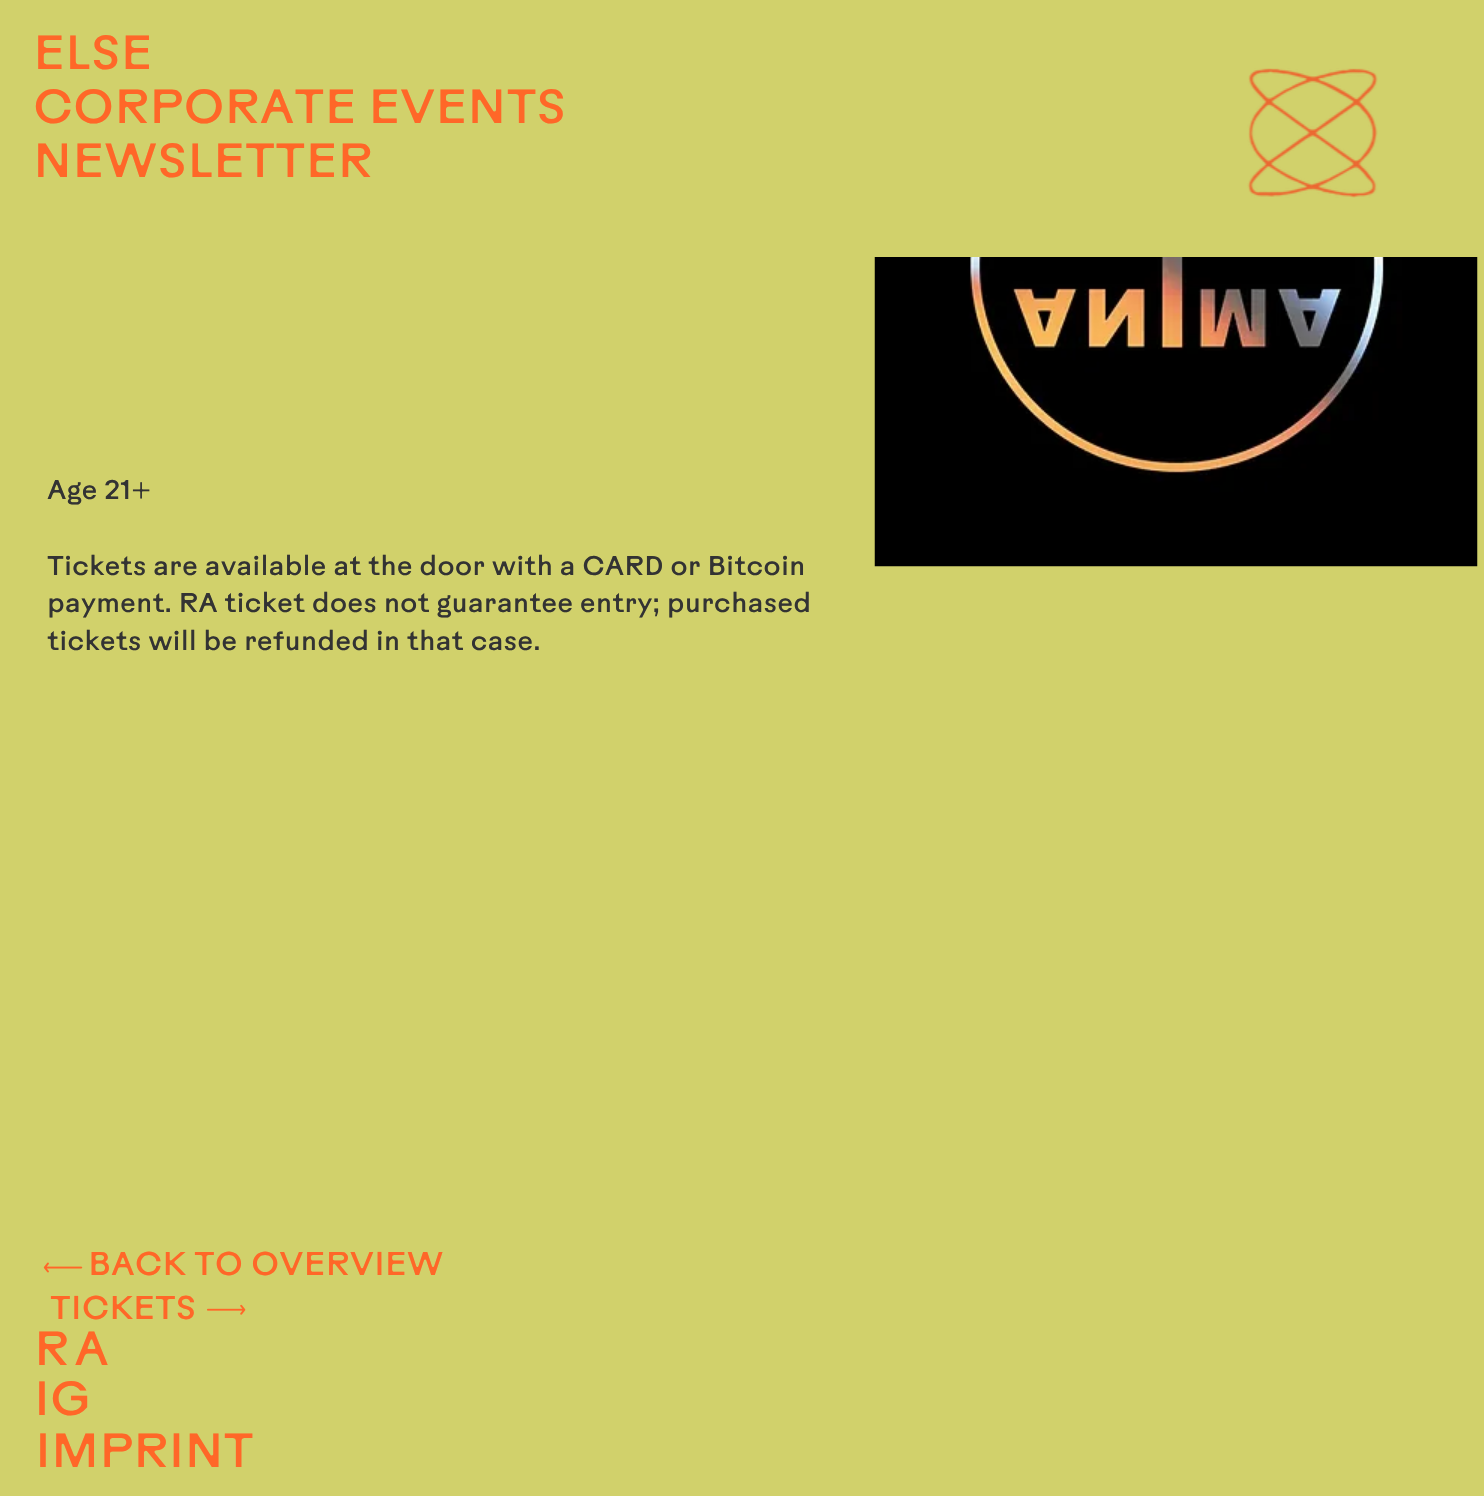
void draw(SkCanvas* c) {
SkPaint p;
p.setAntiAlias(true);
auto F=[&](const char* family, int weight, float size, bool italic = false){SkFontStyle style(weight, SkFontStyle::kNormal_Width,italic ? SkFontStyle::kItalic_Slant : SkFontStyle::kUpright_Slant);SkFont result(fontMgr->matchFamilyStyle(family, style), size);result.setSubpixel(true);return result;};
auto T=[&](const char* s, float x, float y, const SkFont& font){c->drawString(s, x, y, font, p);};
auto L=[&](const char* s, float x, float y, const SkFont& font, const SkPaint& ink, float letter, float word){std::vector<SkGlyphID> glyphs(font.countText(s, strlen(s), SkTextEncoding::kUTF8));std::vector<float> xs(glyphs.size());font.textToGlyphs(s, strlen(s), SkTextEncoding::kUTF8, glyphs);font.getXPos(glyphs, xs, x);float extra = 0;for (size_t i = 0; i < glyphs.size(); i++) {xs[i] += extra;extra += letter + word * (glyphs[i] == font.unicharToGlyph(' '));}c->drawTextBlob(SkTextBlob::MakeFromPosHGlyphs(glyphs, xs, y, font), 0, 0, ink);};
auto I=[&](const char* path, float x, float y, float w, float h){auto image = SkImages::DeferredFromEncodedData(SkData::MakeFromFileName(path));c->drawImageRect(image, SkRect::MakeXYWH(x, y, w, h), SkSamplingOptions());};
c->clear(0xffd1d16b);
auto f1 = F("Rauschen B",400,48);
p.setColor(0xffff6728);
T("ELSE",33,69,f1);
T("CORPORATE EVENTS",33,123,f1);
T("NEWSLETTER",33,177,f1);
I("1.png",1247,68,131,130);
auto f2 = F("Rauschen B",400,27);
p.setColor(0xff333333);
T("Age 21+",47,499,f2);
T("Tickets are available at the door with a CARD or Bitcoin",47,575,f2);
T("payment. RA ticket does not guarantee entry; purchased",47,612,f2);
T("tickets will be refunded in that case.",47,650,f2);
I("2.png",874,257,604,310);
I("3.png",43,1262,40,11);
auto f3 = F("Rauschen B",400,33);
p.setColor(0xffff6728);
T("BACK TO OVERVIEW",88,1275,f3);
T("TICKETS",50,1319,f3);
I("4.png",207,1304,39,11);
L("RA",34,1365,f1,p,5,0);
T("IG",34,1415,f1);
T("IMPRINT",35,1467,f1);
}
